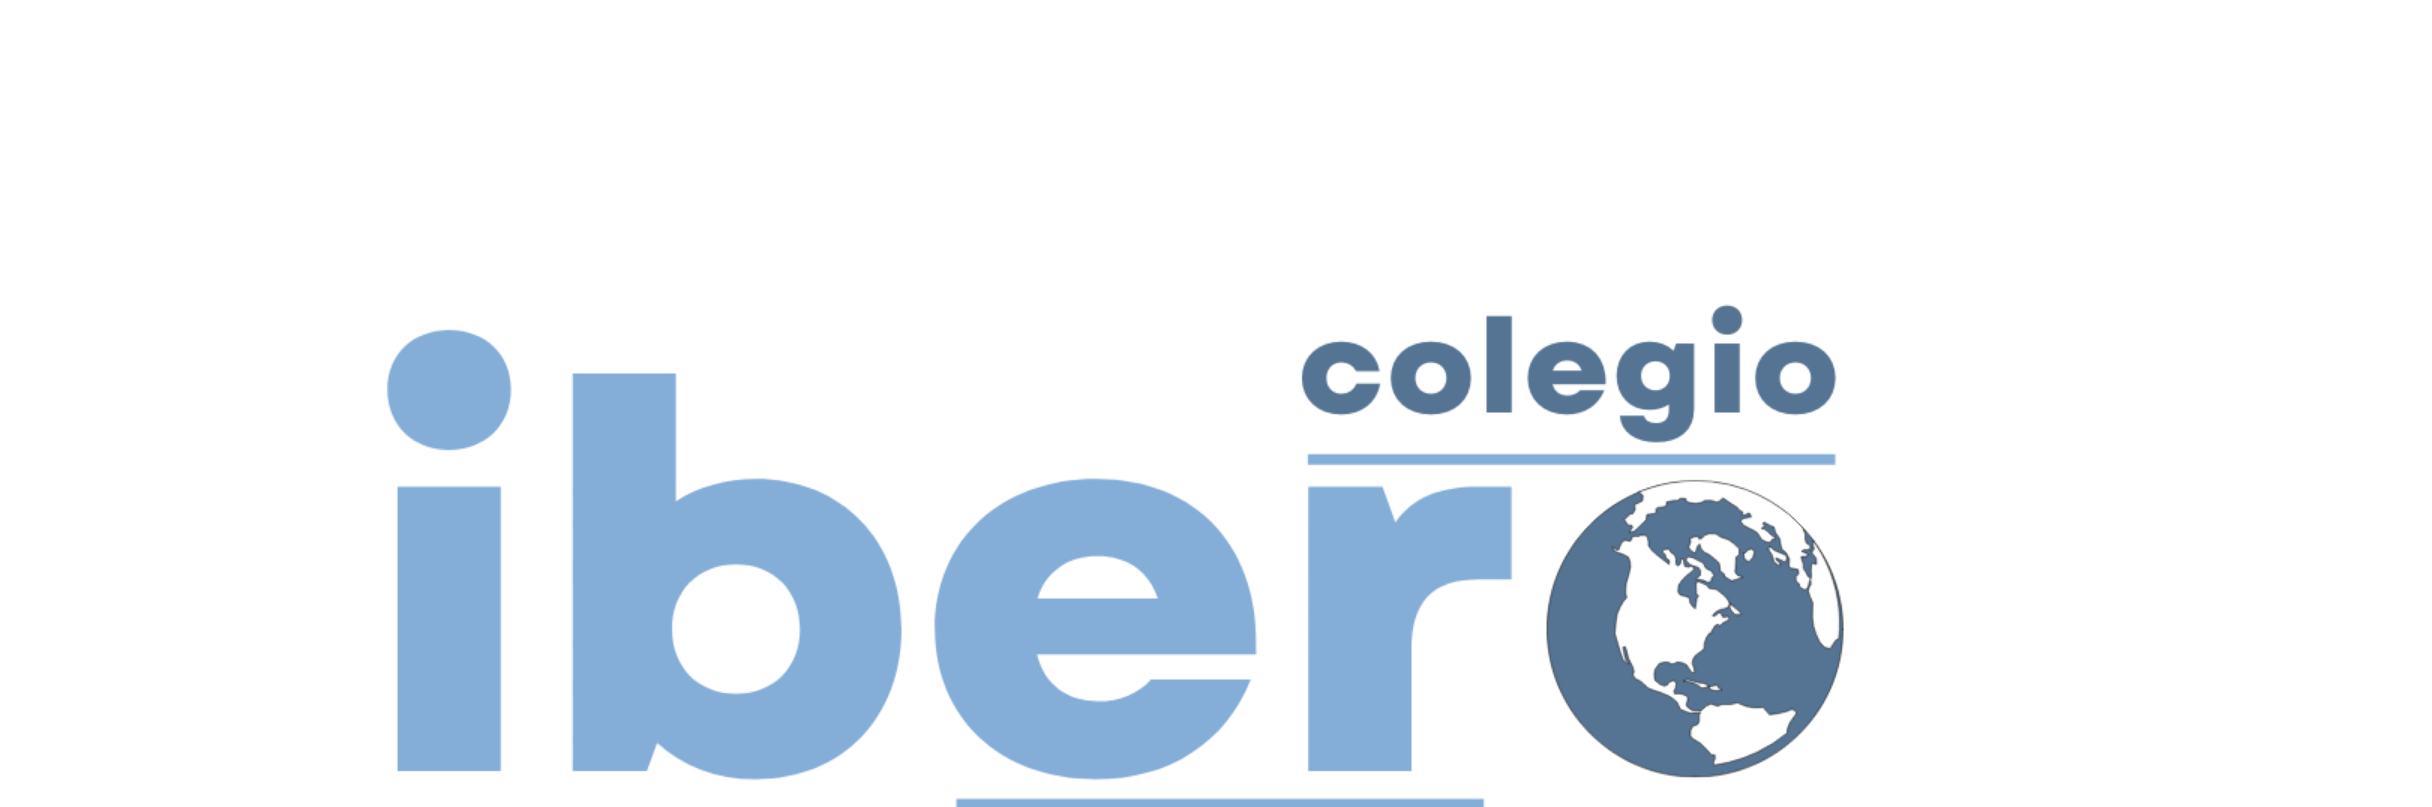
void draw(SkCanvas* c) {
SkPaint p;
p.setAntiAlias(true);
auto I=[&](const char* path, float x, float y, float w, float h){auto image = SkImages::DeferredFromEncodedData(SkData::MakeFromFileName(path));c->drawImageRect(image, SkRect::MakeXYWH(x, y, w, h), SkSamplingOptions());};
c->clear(0xffffffff);
I("1.png",386,304,1458,503);
}
